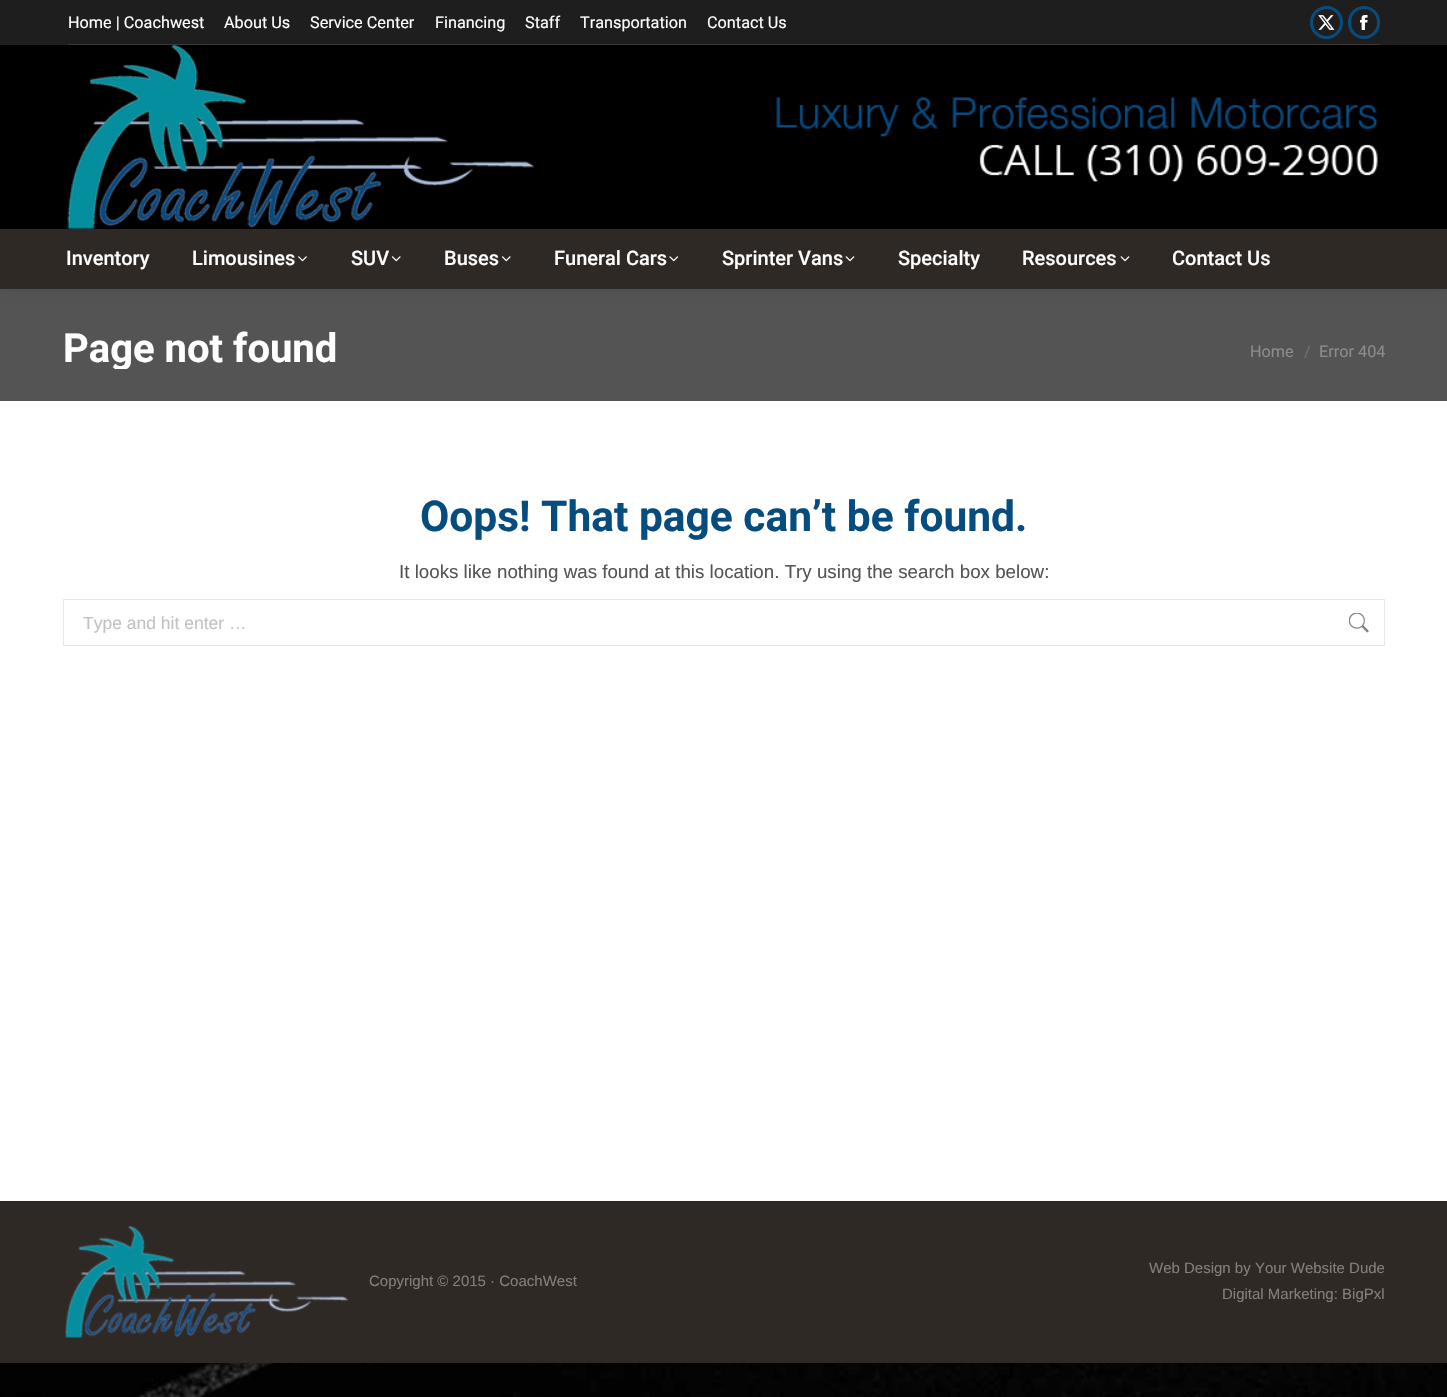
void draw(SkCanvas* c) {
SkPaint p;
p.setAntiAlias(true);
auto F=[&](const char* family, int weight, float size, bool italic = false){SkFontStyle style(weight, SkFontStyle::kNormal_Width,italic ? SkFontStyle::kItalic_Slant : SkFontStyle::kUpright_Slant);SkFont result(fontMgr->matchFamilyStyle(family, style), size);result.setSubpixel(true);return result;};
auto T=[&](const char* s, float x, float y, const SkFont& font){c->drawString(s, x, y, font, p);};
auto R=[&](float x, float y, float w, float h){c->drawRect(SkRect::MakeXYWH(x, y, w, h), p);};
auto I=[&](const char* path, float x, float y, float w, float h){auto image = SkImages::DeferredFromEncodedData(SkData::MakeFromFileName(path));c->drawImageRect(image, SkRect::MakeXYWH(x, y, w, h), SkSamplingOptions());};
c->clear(0xffffffff);
I("1.png",0,1363,1447,34);
p.setColor(0x26000000);
p.setMaskFilter(SkMaskFilter::MakeBlur(kNormal_SkBlurStyle, 7.5));
c->drawRect(SkRect::MakeXYWH(0,0,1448,1363),p);
p.setMaskFilter(nullptr);
p.setColor(0xffffffff);
R(0,401,1447,800);
p.setColor(0xff545454);
R(0,289,1447,112);
p.setColor(0x12000000);
p.setMaskFilter(SkMaskFilter::MakeBlur(kNormal_SkBlurStyle, 9.5));
c->drawRect(SkRect::MakeXYWH(-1,-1,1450,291),p);
p.setMaskFilter(nullptr);
p.setColor(0xff000000);
R(0,45,1447,184);
p.setColor(0xff1e1e1e);
R(0,0,1447,45);
auto f1 = F("Roboto",400,16.25);
p.setColor(0xffffffff);
T("Home | Coachwest",68,28,f1);
T("About Us",224,28,f1);
T("Service Center",310,28,f1);
T("Financing",435,28,f1);
T("Staff",525,28,f1);
T("Transportation",580,28,f1);
T("Contact Us",707,28,f1);
p.setStroke(true);
p.setStrokeWidth(3);
p.setColor(0xff064c7f);
c->drawCircle(1326.5,22.5,15,p);
I("2.png",1318,15,17,15);
c->drawRoundRect(SkRect::MakeXYWH(1349.5,7.5,29,30),14.5,14.5,p);
I("3.png",1360,15,8,15);
p.setStroke(false);
p.setColor(0x1fffffff);
R(68,44,1312,1);
I("4.png",67,45,467,184);
I("5.png",776,97,602,85);
p.setColor(0xff2f2926);
R(0,229,1447,60);
auto f2 = F("Roboto",500,20);
p.setColor(0xffffffff);
T("Inventory",66,265,f2);
T("Limousines",192,265,f2);
I("6.png",298,256,9,6);
T("SUV",351,265,f2);
I("7.png",391,256,10,6);
T("Buses",444,265,f2);
I("7.png",501,256,10,6);
T("Funeral Cars",554,265,f2);
I("8.png",669,256,10,6);
T("Sprinter Vans",722,265,f2);
I("9.png",845,256,10,6);
T("Specialty",898,265,f2);
T("Resources",1022,265,f2);
I("9.png",1120,256,10,6);
T("Contact Us",1172,265,f2);
c->save();
c->clipRect(SkRect::MakeXYWH(63,329,273,40));
auto f3 = F("Roboto",700,40);
T("Page not found",63,362,f3);
c->restore();
p.setColor(0xff8c8c8c);
T("Home",1250,357,f1);
p.setColor(0xff707070);
T("/",1304,357,f1);
p.setColor(0xff8c8c8c);
T("Error 404",1319,357,f1);
auto f4 = F("Roboto",700,42.5);
p.setColor(0xff064c7f);
T("Oops! That page can’t be found.",420,531,f4);
auto f5 = F("Liberation Sans",400,18.75);
p.setColor(0xff545454);
T("It looks like nothing was found at this location. Try using the search box below:",399,578,f5);
p.setStroke(true);
p.setStrokeWidth(1);
p.setColor(0xffe8e8e8);
c->drawRect(SkRect::MakeXYWH(63.5,599.5,1321,46),p);
auto f6 = F("Liberation Sans",400,17.5);
p.setStroke(false);
p.setColor(0xffc1c2c5);
T("Type and hit enter …",83,629,f6);
I("10.png",1349,613,20,20);
p.setColor(0xff2f2926);
R(0,1201,1447,162);
I("11.png",65,1226,284,112);
auto f7 = F("Liberation Sans",400,15);
p.setColor(0xff847f7b);
T("Copyright © 2015 · CoachWest",369,1286,f7);
T("Web Design by Your Website Dude",1149,1273,f7);
T("Digital Marketing: BigPxl",1222,1299,f7);
}
